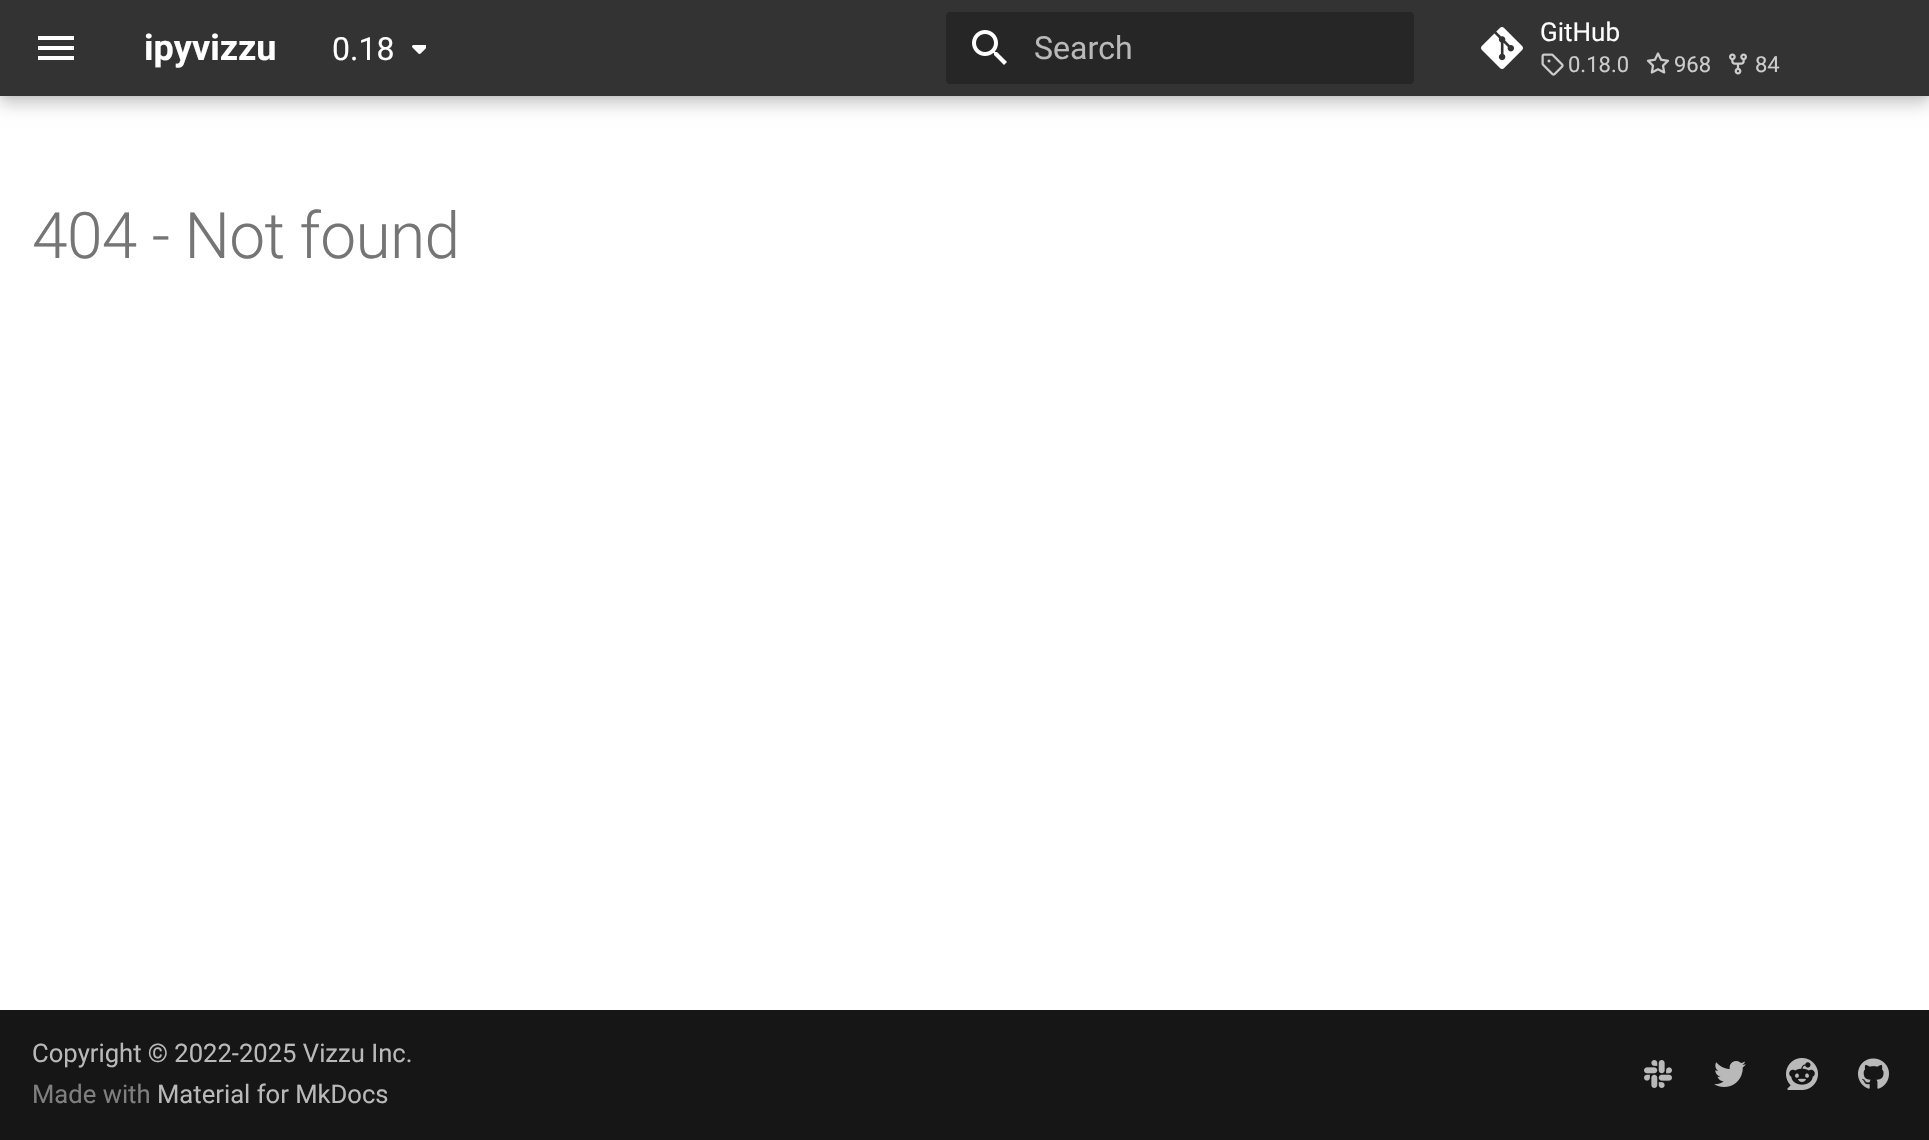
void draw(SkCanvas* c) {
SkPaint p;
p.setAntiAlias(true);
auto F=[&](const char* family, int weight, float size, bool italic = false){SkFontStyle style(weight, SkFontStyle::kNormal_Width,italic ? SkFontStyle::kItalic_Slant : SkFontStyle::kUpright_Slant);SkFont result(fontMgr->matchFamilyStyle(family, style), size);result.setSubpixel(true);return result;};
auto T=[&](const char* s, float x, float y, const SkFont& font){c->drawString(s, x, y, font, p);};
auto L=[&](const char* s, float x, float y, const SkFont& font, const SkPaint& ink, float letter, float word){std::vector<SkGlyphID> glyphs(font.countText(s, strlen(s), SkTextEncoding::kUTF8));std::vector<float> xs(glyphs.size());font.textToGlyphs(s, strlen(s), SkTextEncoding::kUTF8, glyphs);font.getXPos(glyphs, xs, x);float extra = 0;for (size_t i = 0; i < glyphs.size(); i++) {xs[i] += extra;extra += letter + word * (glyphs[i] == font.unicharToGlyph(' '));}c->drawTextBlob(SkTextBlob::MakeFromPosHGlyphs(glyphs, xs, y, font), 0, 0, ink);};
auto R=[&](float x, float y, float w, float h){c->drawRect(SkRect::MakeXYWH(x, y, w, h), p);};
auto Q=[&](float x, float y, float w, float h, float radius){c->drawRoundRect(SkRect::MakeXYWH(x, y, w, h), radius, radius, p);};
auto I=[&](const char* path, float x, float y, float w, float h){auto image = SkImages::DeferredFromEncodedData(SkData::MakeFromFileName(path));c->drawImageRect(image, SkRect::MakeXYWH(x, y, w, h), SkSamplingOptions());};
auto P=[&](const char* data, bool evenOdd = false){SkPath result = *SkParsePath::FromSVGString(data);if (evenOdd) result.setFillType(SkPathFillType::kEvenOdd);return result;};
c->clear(0xffffffff);
p.setColor(0x33000000);
p.setMaskFilter(SkMaskFilter::MakeBlur(kNormal_SkBlurStyle, 8));
c->drawRect(SkRect::MakeXYWH(0,8,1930,96),p);
p.setMaskFilter(nullptr);
p.setColor(0x1a000000);
p.setMaskFilter(SkMaskFilter::MakeBlur(kNormal_SkBlurStyle, 4));
c->drawRect(SkRect::MakeXYWH(0,0,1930,96),p);
p.setMaskFilter(nullptr);
p.setColor(0xff333333);
R(0,0,1929,96);
p.setColor(0xffffffff);
c->drawPath(P("M38 36h36v4h-36zm0 10h36v4h-36zm0 10h36v4h-36z"),p);
auto f1 = F("Roboto",700,36);
T("ipyvizzu",144,60,f1);
auto f2 = F("Roboto",400,32);
T("0.18",332,60,f2);
I("1.png",412,45,14,9);
p.setColor(0xff262626);
Q(946,12,468,72,4);
I("2.png",972,30,35,35);
p.setColor(0xffb9b9b9);
T("Search",1034,59,f2);
I("3.png",1481,27,42,42);
auto f3 = F("Roboto",400,26);
p.setColor(0xffffffff);
T("GitHub",1540,41,f3);
I("4.png",1541,53,23,23);
auto f4 = F("Roboto",400,22);
p.setColor(0xffcccccc);
T("0.18.0",1568,72,f4);
I("5.png",1646,52,24,22);
T("968",1674,72,f4);
I("6.png",1729,53,18,22);
T("84",1755,72,f4);
auto f5 = F("Roboto",300,64);
p.setColor(0xff757575);
L("404 - Not found",32,258,f5,p,-.6,0);
p.setColor(0xff161616);
R(0,1010,1929,130);
auto f6 = F("Roboto",400,25.6);
p.setColor(0xffb9b9b9);
T("Copyright © 2022-2025 Vizzu Inc.",32,1062,f6);
p.setColor(0xff7f7f7f);
T("Made with",32,1103,f6);
p.setColor(0xffb9b9b9);
T("Material for MkDocs",157,1103,f6);
I("7.png",1644,1060,28,28);
I("8.png",1714,1061,32,26);
I("9.png",1786,1058,32,32);
I("10.png",1858,1058,31,31);
}
